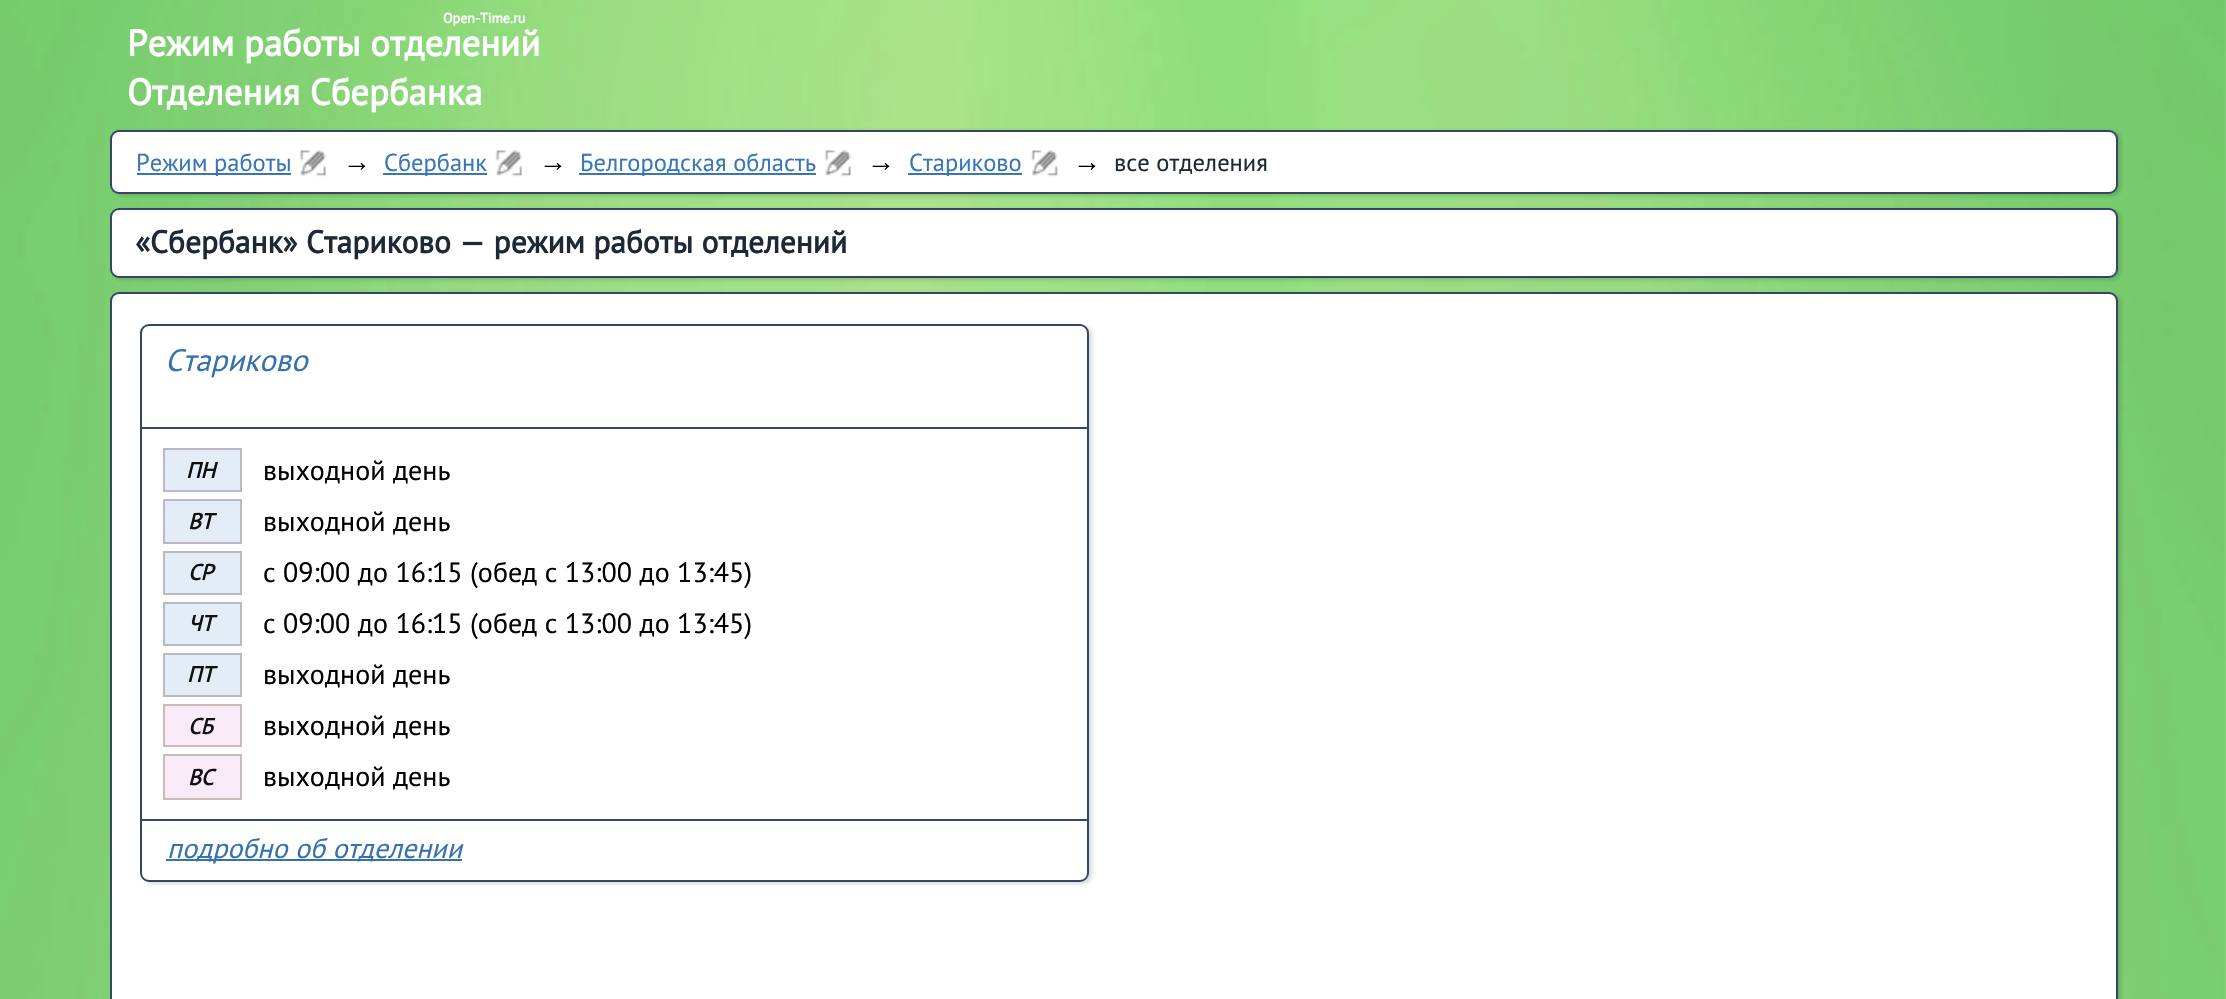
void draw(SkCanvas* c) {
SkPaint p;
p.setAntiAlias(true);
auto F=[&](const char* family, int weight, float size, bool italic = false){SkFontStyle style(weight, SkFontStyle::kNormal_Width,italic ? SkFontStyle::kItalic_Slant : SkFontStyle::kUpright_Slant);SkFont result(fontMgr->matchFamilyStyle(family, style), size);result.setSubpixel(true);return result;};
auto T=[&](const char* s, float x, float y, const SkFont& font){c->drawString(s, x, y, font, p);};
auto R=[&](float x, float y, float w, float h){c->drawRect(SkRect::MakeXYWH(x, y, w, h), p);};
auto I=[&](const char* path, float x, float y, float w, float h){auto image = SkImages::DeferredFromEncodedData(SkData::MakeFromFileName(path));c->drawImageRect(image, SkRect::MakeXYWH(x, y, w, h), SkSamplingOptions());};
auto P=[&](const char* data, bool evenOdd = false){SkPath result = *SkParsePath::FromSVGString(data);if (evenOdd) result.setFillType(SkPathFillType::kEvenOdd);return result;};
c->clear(0xffffffff);
I("1.png",0,0,2226,999);
auto f1 = F("PT Sans",700,14);
p.setColor(0xffffffff);
T("Open-Time.ru",443,23,f1);
auto f2 = F("PT Sans",700,36.75);
T("Режим работы отделений",127,56,f2);
T("Отделения Сбербанка",127,105,f2);
p.setColor(0x331e321e);
p.setMaskFilter(SkMaskFilter::MakeBlur(kNormal_SkBlurStyle, 2));
c->drawRoundRect(SkRect::MakeXYWH(114,131,2007,65),9,9,p);
p.setMaskFilter(nullptr);
p.setColor(0xffffffff);
c->drawRoundRect(SkRect::MakeXYWH(111,131,2006,62),8,8,p);
p.setStroke(true);
p.setStrokeWidth(2);
p.setColor(0xff354665);
c->drawRoundRect(SkRect::MakeXYWH(111,131,2006,62),8,8,p);
p.setStroke(false);
p.setColor(0xff3876b6);
R(137,173,154,2);
auto f3 = F("PT Sans",400,24.5);
T("Режим работы",136,171,f3);
I("2.png",299,150,27,27);
auto f4 = F("Liberation Sans",400,28);
p.setColor(0xff000000);
T("→",343,171,f4);
p.setColor(0xff3876b6);
R(383,173,104,2);
T("Сбербанк",384,171,f3);
I("2.png",495,150,27,27);
p.setColor(0xff000000);
T("→",539,171,f4);
p.setColor(0xff3876b6);
R(579,173,237,2);
T("Белгородская область",580,171,f3);
I("3.png",824,150,27,27);
p.setColor(0xff000000);
T("→",867,171,f4);
p.setColor(0xff3876b6);
R(908,173,114,2);
T("Стариково",909,171,f3);
I("4.png",1030,150,28,27);
p.setColor(0xff000000);
T("→",1073,171,f4);
p.setColor(0xff1d2934);
T("все отделения",1114,171,f3);
p.setColor(0x331e321e);
p.setMaskFilter(SkMaskFilter::MakeBlur(kNormal_SkBlurStyle, 2));
c->drawRoundRect(SkRect::MakeXYWH(114,210,2007,70),9,9,p);
p.setMaskFilter(nullptr);
p.setColor(0xffffffff);
c->drawRoundRect(SkRect::MakeXYWH(111,209,2006,68),8,8,p);
p.setStroke(true);
p.setColor(0xff354665);
c->drawRoundRect(SkRect::MakeXYWH(111,209,2006,68),8,8,p);
auto f5 = F("PT Sans",700,31.5);
p.setStroke(false);
p.setColor(0xff1d2934);
T("«Сбербанк» Стариково — режим работы отделений",135,253,f5);
p.setColor(0x331e321e);
p.setMaskFilter(SkMaskFilter::MakeBlur(kNormal_SkBlurStyle, 2));
c->drawRoundRect(SkRect::MakeXYWH(114,294,2007,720),9,9,p);
p.setMaskFilter(nullptr);
p.setColor(0xffffffff);
c->drawRoundRect(SkRect::MakeXYWH(111,293,2006,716),8,8,p);
p.setStroke(true);
p.setColor(0xff354665);
c->drawRoundRect(SkRect::MakeXYWH(111,293,2006,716),8,8,p);
c->save();
c->clipPath(P("M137 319h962v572h-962zm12 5h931c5 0 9 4 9 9v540c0 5-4 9-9 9h-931c-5 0-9-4-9-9v-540c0-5 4-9 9-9z",true),true);
p.setStroke(false);
p.setColor(0x2e253723);
p.setMaskFilter(SkMaskFilter::MakeBlur(kNormal_SkBlurStyle, 2));
c->drawRoundRect(SkRect::MakeXYWH(144,326,948,558),9,9,p);
p.setMaskFilter(nullptr);
c->restore();
p.setStroke(true);
p.setColor(0xff354665);
c->drawRoundRect(SkRect::MakeXYWH(141,325,947,556),8,8,p);
p.setStroke(false);
R(142,427,945,2);
auto f6 = F("PT Sans",400,31,true);
p.setColor(0xff3671af);
T("Стариково",165,371,f6);
p.setColor(0xffe3ecf7);
c->drawRect(SkRect::MakeXYWH(164,449,77,42),p);
p.setStroke(true);
p.setColor(0xffb9b8c4);
c->drawRect(SkRect::MakeXYWH(164,449,77,42),p);
auto f7 = F("PT Sans",700,22,true);
p.setStroke(false);
p.setColor(0xff101010);
T("ПН",186,478,f7);
auto f8 = F("PT Sans",400,28);
p.setColor(0xff000000);
T("выходной день",263,480,f8);
p.setColor(0xffe3ecf7);
c->drawRect(SkRect::MakeXYWH(164,500,77,43),p);
p.setStroke(true);
p.setColor(0xffb9b8c4);
c->drawRect(SkRect::MakeXYWH(164,500,77,43),p);
p.setStroke(false);
p.setColor(0xff101010);
T("ВТ",188,529,f7);
p.setColor(0xff000000);
T("выходной день",263,531,f8);
p.setColor(0xffe3ecf7);
c->drawRect(SkRect::MakeXYWH(164,552,77,42),p);
p.setStroke(true);
p.setColor(0xffb9b8c4);
c->drawRect(SkRect::MakeXYWH(164,552,77,42),p);
p.setStroke(false);
p.setColor(0xff101010);
T("СР",188,580,f7);
p.setColor(0xff000000);
T("с 09:00 до 16:15 (обед с 13:00 до 13:45)",263,582,f8);
p.setColor(0xffe3ecf7);
c->drawRect(SkRect::MakeXYWH(164,603,77,42),p);
p.setStroke(true);
p.setColor(0xffb9b8c4);
c->drawRect(SkRect::MakeXYWH(164,603,77,42),p);
p.setStroke(false);
p.setColor(0xff101010);
T("ЧТ",188,631,f7);
p.setColor(0xff000000);
T("с 09:00 до 16:15 (обед с 13:00 до 13:45)",263,633,f8);
p.setColor(0xffe3ecf7);
c->drawRect(SkRect::MakeXYWH(164,654,77,42),p);
p.setStroke(true);
p.setColor(0xffb9b8c4);
c->drawRect(SkRect::MakeXYWH(164,654,77,42),p);
p.setStroke(false);
p.setColor(0xff101010);
T("ПТ",187,682,f7);
p.setColor(0xff000000);
T("выходной день",263,684,f8);
p.setColor(0xfff8eaf7);
c->drawRect(SkRect::MakeXYWH(164,705,77,41),p);
p.setStroke(true);
p.setColor(0xffcbbbbc);
c->drawRect(SkRect::MakeXYWH(164,705,77,41),p);
p.setStroke(false);
p.setColor(0xff101010);
T("СБ",188,734,f7);
p.setColor(0xff000000);
T("выходной день",263,735,f8);
p.setColor(0xfff8eaf7);
c->drawRect(SkRect::MakeXYWH(164,755,77,44),p);
p.setStroke(true);
p.setColor(0xffcbbbbc);
c->drawRect(SkRect::MakeXYWH(164,755,77,44),p);
p.setStroke(false);
p.setColor(0xff101010);
T("ВС",188,785,f7);
p.setColor(0xff000000);
T("выходной день",263,786,f8);
p.setColor(0xff354665);
R(142,819,945,2);
p.setColor(0xff3671af);
R(166,859,296,2);
auto f9 = F("PT Sans",400,28,true);
T("подробно об отделении",167,858,f9);
}
